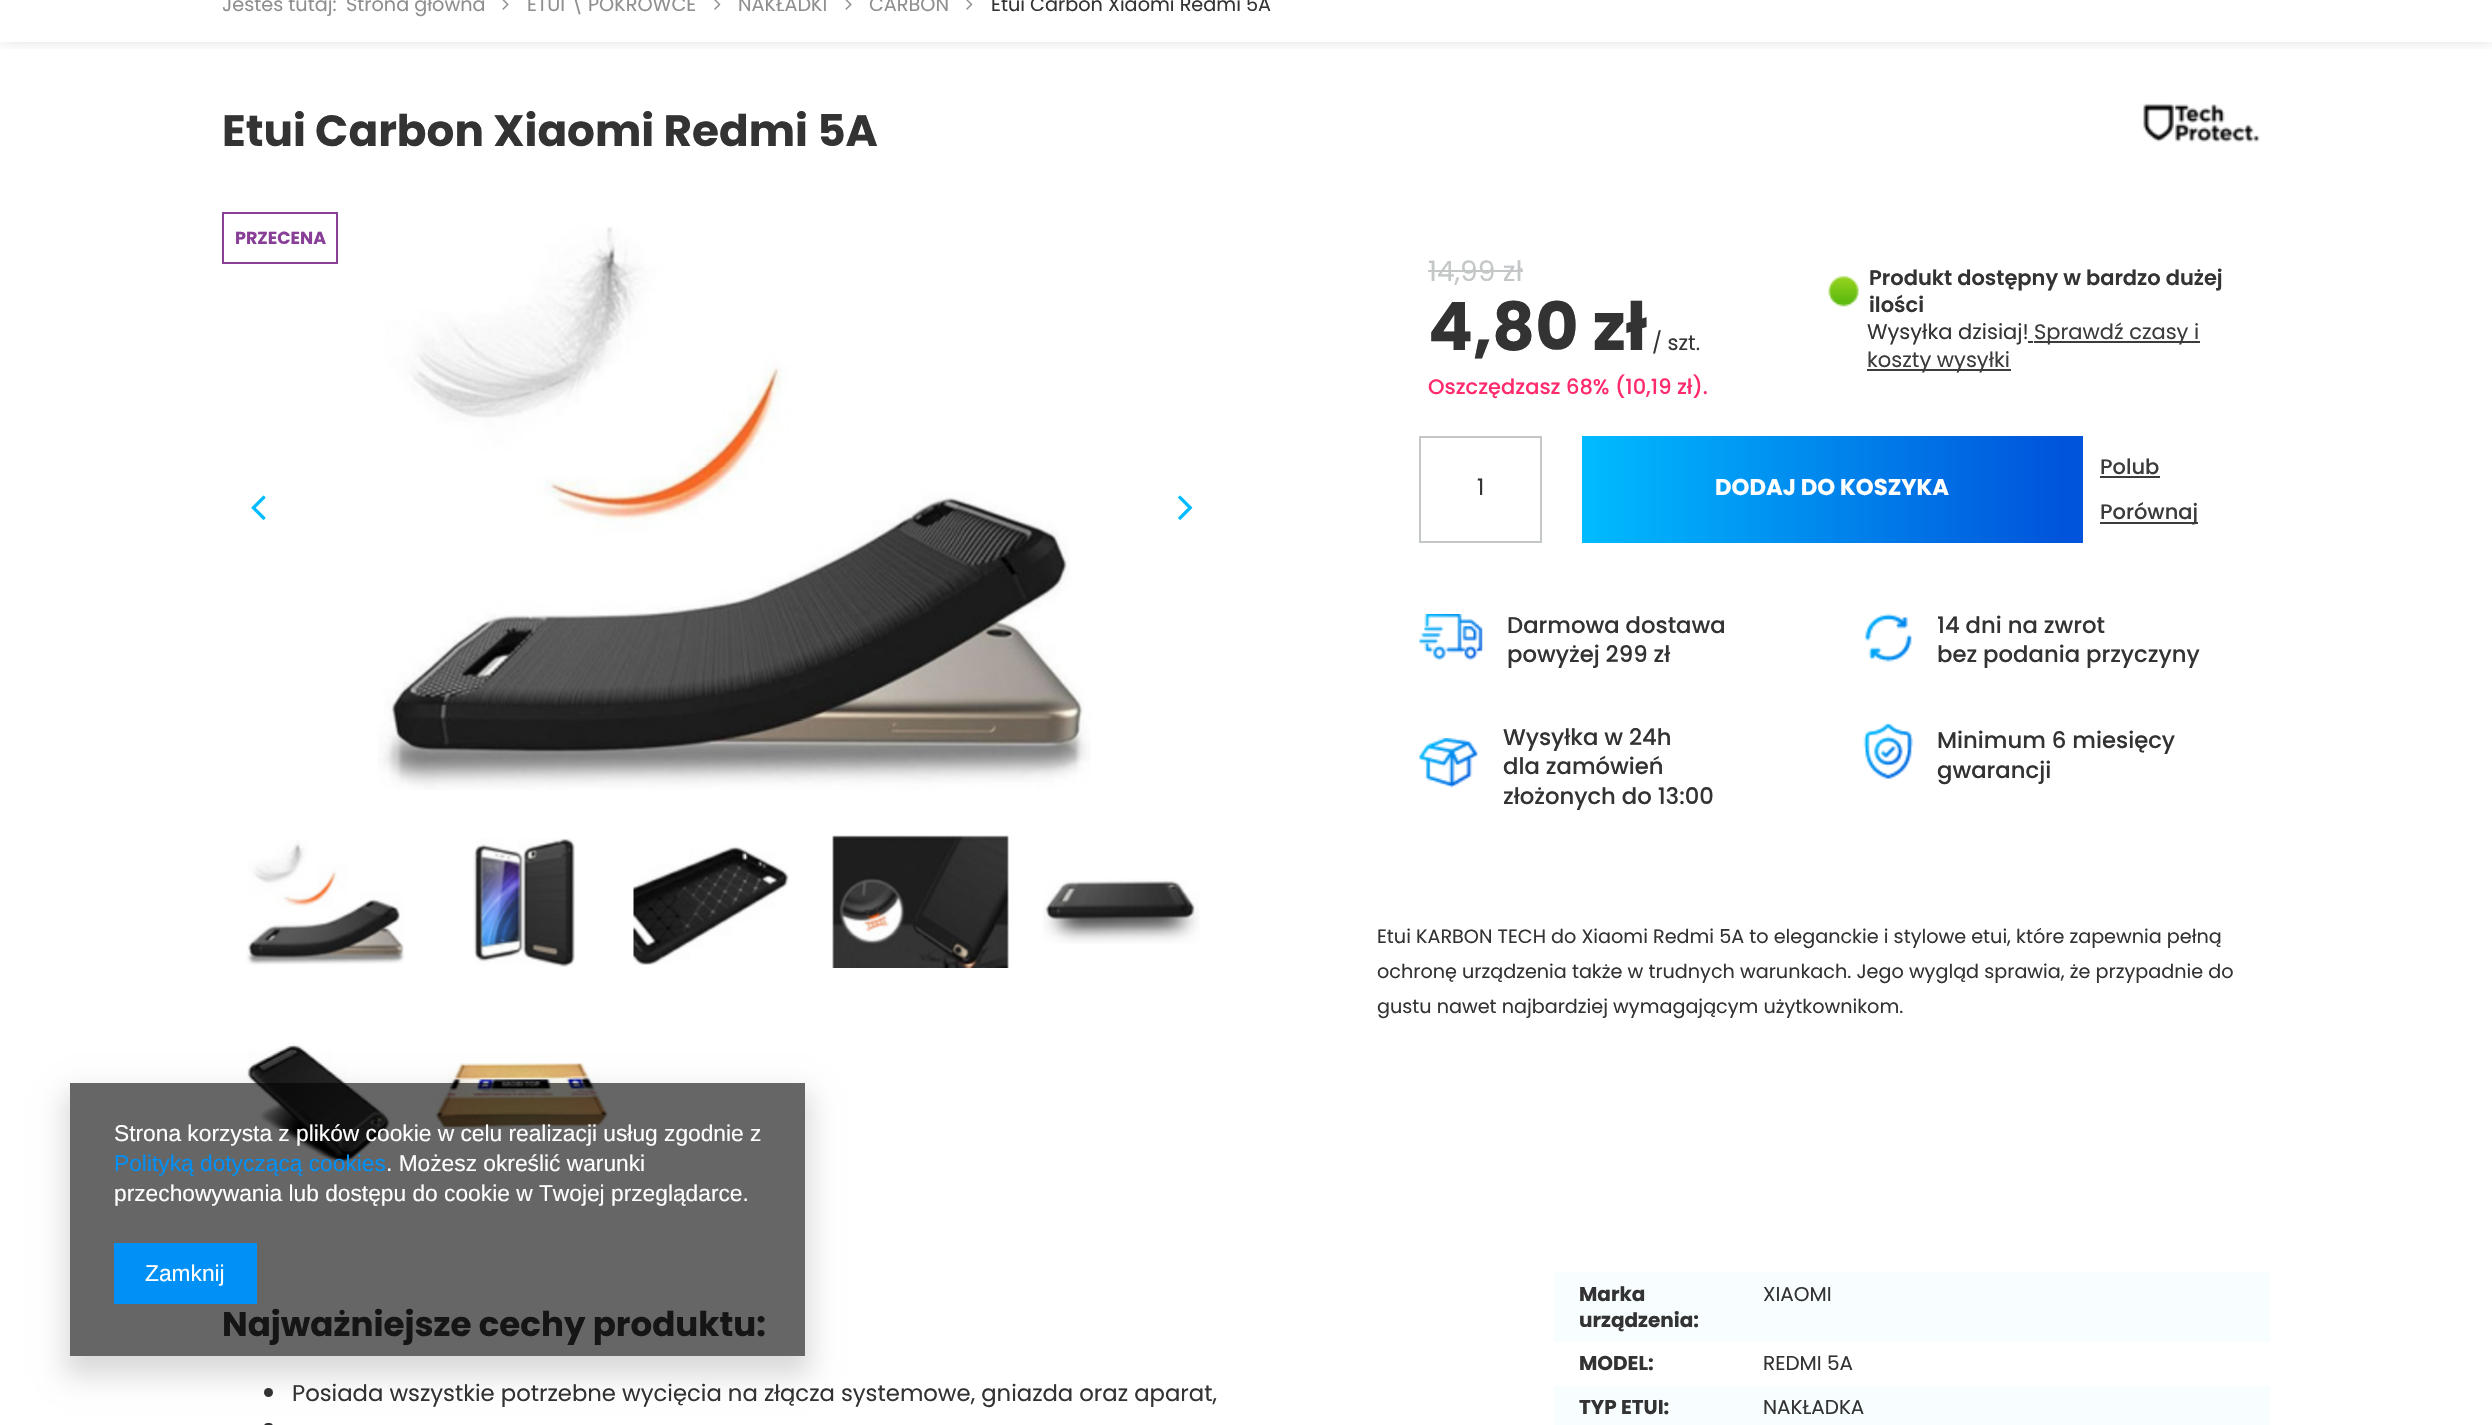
void draw(SkCanvas* c) {
SkPaint p;
p.setAntiAlias(true);
auto F=[&](const char* family, int weight, float size, bool italic = false){SkFontStyle style(weight, SkFontStyle::kNormal_Width,italic ? SkFontStyle::kItalic_Slant : SkFontStyle::kUpright_Slant);SkFont result(fontMgr->matchFamilyStyle(family, style), size);result.setSubpixel(true);return result;};
auto T=[&](const char* s, float x, float y, const SkFont& font){c->drawString(s, x, y, font, p);};
auto R=[&](float x, float y, float w, float h){c->drawRect(SkRect::MakeXYWH(x, y, w, h), p);};
auto Q=[&](float x, float y, float w, float h, float radius){c->drawRoundRect(SkRect::MakeXYWH(x, y, w, h), radius, radius, p);};
auto I=[&](const char* path, float x, float y, float w, float h){auto image = SkImages::DeferredFromEncodedData(SkData::MakeFromFileName(path));c->drawImageRect(image, SkRect::MakeXYWH(x, y, w, h), SkSamplingOptions());};
auto P=[&](const char* data, bool evenOdd = false){SkPath result = *SkParsePath::FromSVGString(data);if (evenOdd) result.setFillType(SkPathFillType::kEvenOdd);return result;};
c->clear(0xffffffff);
c->save();
c->clipRect(SkRect::MakeXYWH(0,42,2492,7));
p.setColor(0x33000000);
p.setMaskFilter(SkMaskFilter::MakeBlur(kNormal_SkBlurStyle, 9));
c->drawRect(SkRect::MakeXYWH(2,-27,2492,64),p);
p.setMaskFilter(nullptr);
c->restore();
auto f1 = F("Poppins",400,19.25);
p.setColor(0xff8f8f8f);
T("Jesteś tutaj:",222,11,f1);
T("Strona główna",346,11,f1);
I("1.png",502,0,7,10);
T("ETUI \\ POKROWCE",527,11,f1);
I("2.png",714,0,7,10);
T("NAKŁADKI",738,11,f1);
I("1.png",845,0,7,10);
T("CARBON",869,11,f1);
I("2.png",966,0,7,10);
p.setColor(0xff333333);
T("Etui Carbon Xiaomi Redmi 5A",991,11,f1);
auto f2 = F("Poppins",700,43.75);
T("Etui Carbon Xiaomi Redmi 5A",222,146,f2);
I("3.png",2143,103,117,39);
I("4.png",251,495,15,25);
I("5.png",378,226,713,564);
I("6.png",1178,495,15,25);
p.setStroke(true);
p.setStrokeWidth(2);
p.setColor(0xff893f97);
c->drawRect(SkRect::MakeXYWH(223,213,114,50),p);
auto f3 = F("Poppins",700,17.5);
p.setStroke(false);
T("PRZECENA",235,244,f3);
I("7.png",246,840,159,125);
I("8.png",473,838,102,129);
I("9.png",633,846,156,119);
I("10.png",832,835,177,133);
I("11.png",1043,879,157,65);
I("12.png",247,1043,143,120);
I("13.png",435,1063,174,71);
auto f4 = F("Poppins",400,28);
p.setColor(0xffc4c7c8);
T("14,99 zł",1428,281,f4);
R(1428,270,95,2);
auto f5 = F("Poppins",700,66.5);
p.setColor(0xff333333);
T("4,80 zł",1428,350,f5);
auto f6 = F("Poppins",400,21);
T("/ szt.",1652,350,f6);
auto f7 = F("Poppins",500,21);
p.setColor(0xffff2b6c);
T("Oszczędzasz 68% (10,19 zł).",1428,394,f7);
I("14.png",1828,275,31,32);
auto f8 = F("Poppins",600,21);
p.setColor(0xff333333);
T("Produkt dostępny w bardzo dużej",1869,285,f8);
T("ilości",1869,312,f8);
T("Wysyłka",1867,339,f6);
T("dzisiaj!",1958,339,f6);
p.setColor(0xff3c3c3c);
R(2034,341,166,2);
T("Sprawdź czasy i",2034,339,f6);
R(2028,341,5,2);
R(1867,369,144,2);
T("koszty wysyłki",1867,367,f6);
p.setStroke(true);
p.setColor(0xffc4c7c8);
c->drawRect(SkRect::MakeXYWH(1420,437,121,105),p);
auto f9 = F("Poppins",400,22.75);
p.setStroke(false);
p.setColor(0xff333333);
T("1",1477,495,f9);
{
const SkColor colors[] = {0xff00bbff,0xff0054db,0xff0054db,0xff00bbff};
const float stops[] = {0,.48,.64,1};
const SkPoint ends[] = {{590,489}, {1584,489}};
p.setShader(SkGradientShader::MakeLinear(ends, colors, stops, 4, SkTileMode::kClamp));
p.setAlpha(255);
}
R(1582,436,2,107);
{
const SkColor colors[] = {0xff00bbff,0xff0054db,0xff0054db,0xff00bbff};
const float stops[] = {0,.48,.64,1};
const SkPoint ends[] = {{1584,489}, {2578,489}};
p.setShader(SkGradientShader::MakeLinear(ends, colors, stops, 4, SkTileMode::kClamp));
p.setAlpha(255);
}
R(1584,436,499,107);
auto f10 = F("Poppins",700,22.75);
p.setShader(nullptr);
p.setColor(0xffffffff);
T("DODAJ DO KOSZYKA",1715,495,f10);
p.setColor(0xff3c3c3c);
T("Polub",2100,474,f7);
R(2100,476,60,2);
R(2100,522,98,2);
T("Porównaj",2100,519,f7);
I("15.png",1419,614,64,46);
auto f11 = F("Poppins",500,22.75);
p.setColor(0xff333333);
T("Darmowa dostawa",1507,633,f11);
T("powyżej 299 zł",1507,662,f11);
I("16.png",1865,613,47,49);
T("14 dni na zwrot",1937,633,f11);
T("bez podania przyczyny",1937,662,f11);
I("17.png",1419,738,59,50);
T("Wysyłka w 24h",1503,745,f11);
T("dla zamówień",1503,774,f11);
T("złożonych do 13:00",1503,804,f11);
I("18.png",1863,723,50,56);
T("Minimum 6 miesięcy",1937,748,f11);
T("gwarancji",1937,778,f11);
auto f12 = F("Poppins",400,19.2);
T("Etui KARBON TECH do Xiaomi Redmi 5A to eleganckie i stylowe etui, które zapewnia pełną",1377,943,f12);
T("ochronę urządzenia także w trudnych warunkach. Jego wygląd sprawia, że przypadnie do",1377,978,f12);
T("gustu nawet najbardziej wymagającym użytkownikom.",1377,1013,f12);
auto f13 = F("Poppins",700,34.1);
T("Najważniejsze cechy produktu:",222,1336,f13);
c->drawCircle(268.5,1392.5,4.5,p);
T("Posiada wszystkie potrzebne wycięcia na złącza systemowe, gniazda oraz aparat,",292,1401,f9);
Q(264,1423,9,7,4.5);
p.setColor(0xfff8fdff);
R(1554,1272,716,70);
auto f14 = F("Poppins",700,20);
p.setColor(0xff333333);
T("Marka",1579,1301,f14);
T("urządzenia:",1579,1327,f14);
auto f15 = F("Poppins",400,20);
T("XIAOMI",1763,1301,f15);
T("MODEL:",1579,1370,f14);
T("REDMI 5A",1763,1370,f15);
p.setColor(0xfff8fdff);
R(1554,1386,716,39);
p.setColor(0xff333333);
T("TYP ETUI:",1579,1414,f14);
T("NAKŁADKA",1763,1414,f15);
c->save();
c->clipPath(P("M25 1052h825v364h-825zm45 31h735v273h-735z",true),true);
p.setColor(0x26000000);
p.setMaskFilter(SkMaskFilter::MakeBlur(kNormal_SkBlurStyle, 13));
c->drawRect(SkRect::MakeXYWH(65,1092,745,284),p);
p.setMaskFilter(nullptr);
c->restore();
p.setColor(0x99000000);
R(70,1083,735,273);
auto f16 = F("Liberation Sans",400,22.75);
p.setColor(0xffffffff);
T("Strona korzysta z plików cookie w celu realizacji usług zgodnie z",114,1141,f16);
p.setColor(0xff0090f6);
T("Polityką dotyczącą cookies",114,1171,f16);
p.setColor(0xffffffff);
T(". Możesz określić warunki",386,1171,f16);
T("przechowywania lub dostępu do cookie w Twojej przeglądarce.",114,1201,f16);
p.setColor(0xff0090f6);
R(114,1243,143,61);
p.setColor(0xffffffff);
T("Zamknij",145,1281,f16);
}
